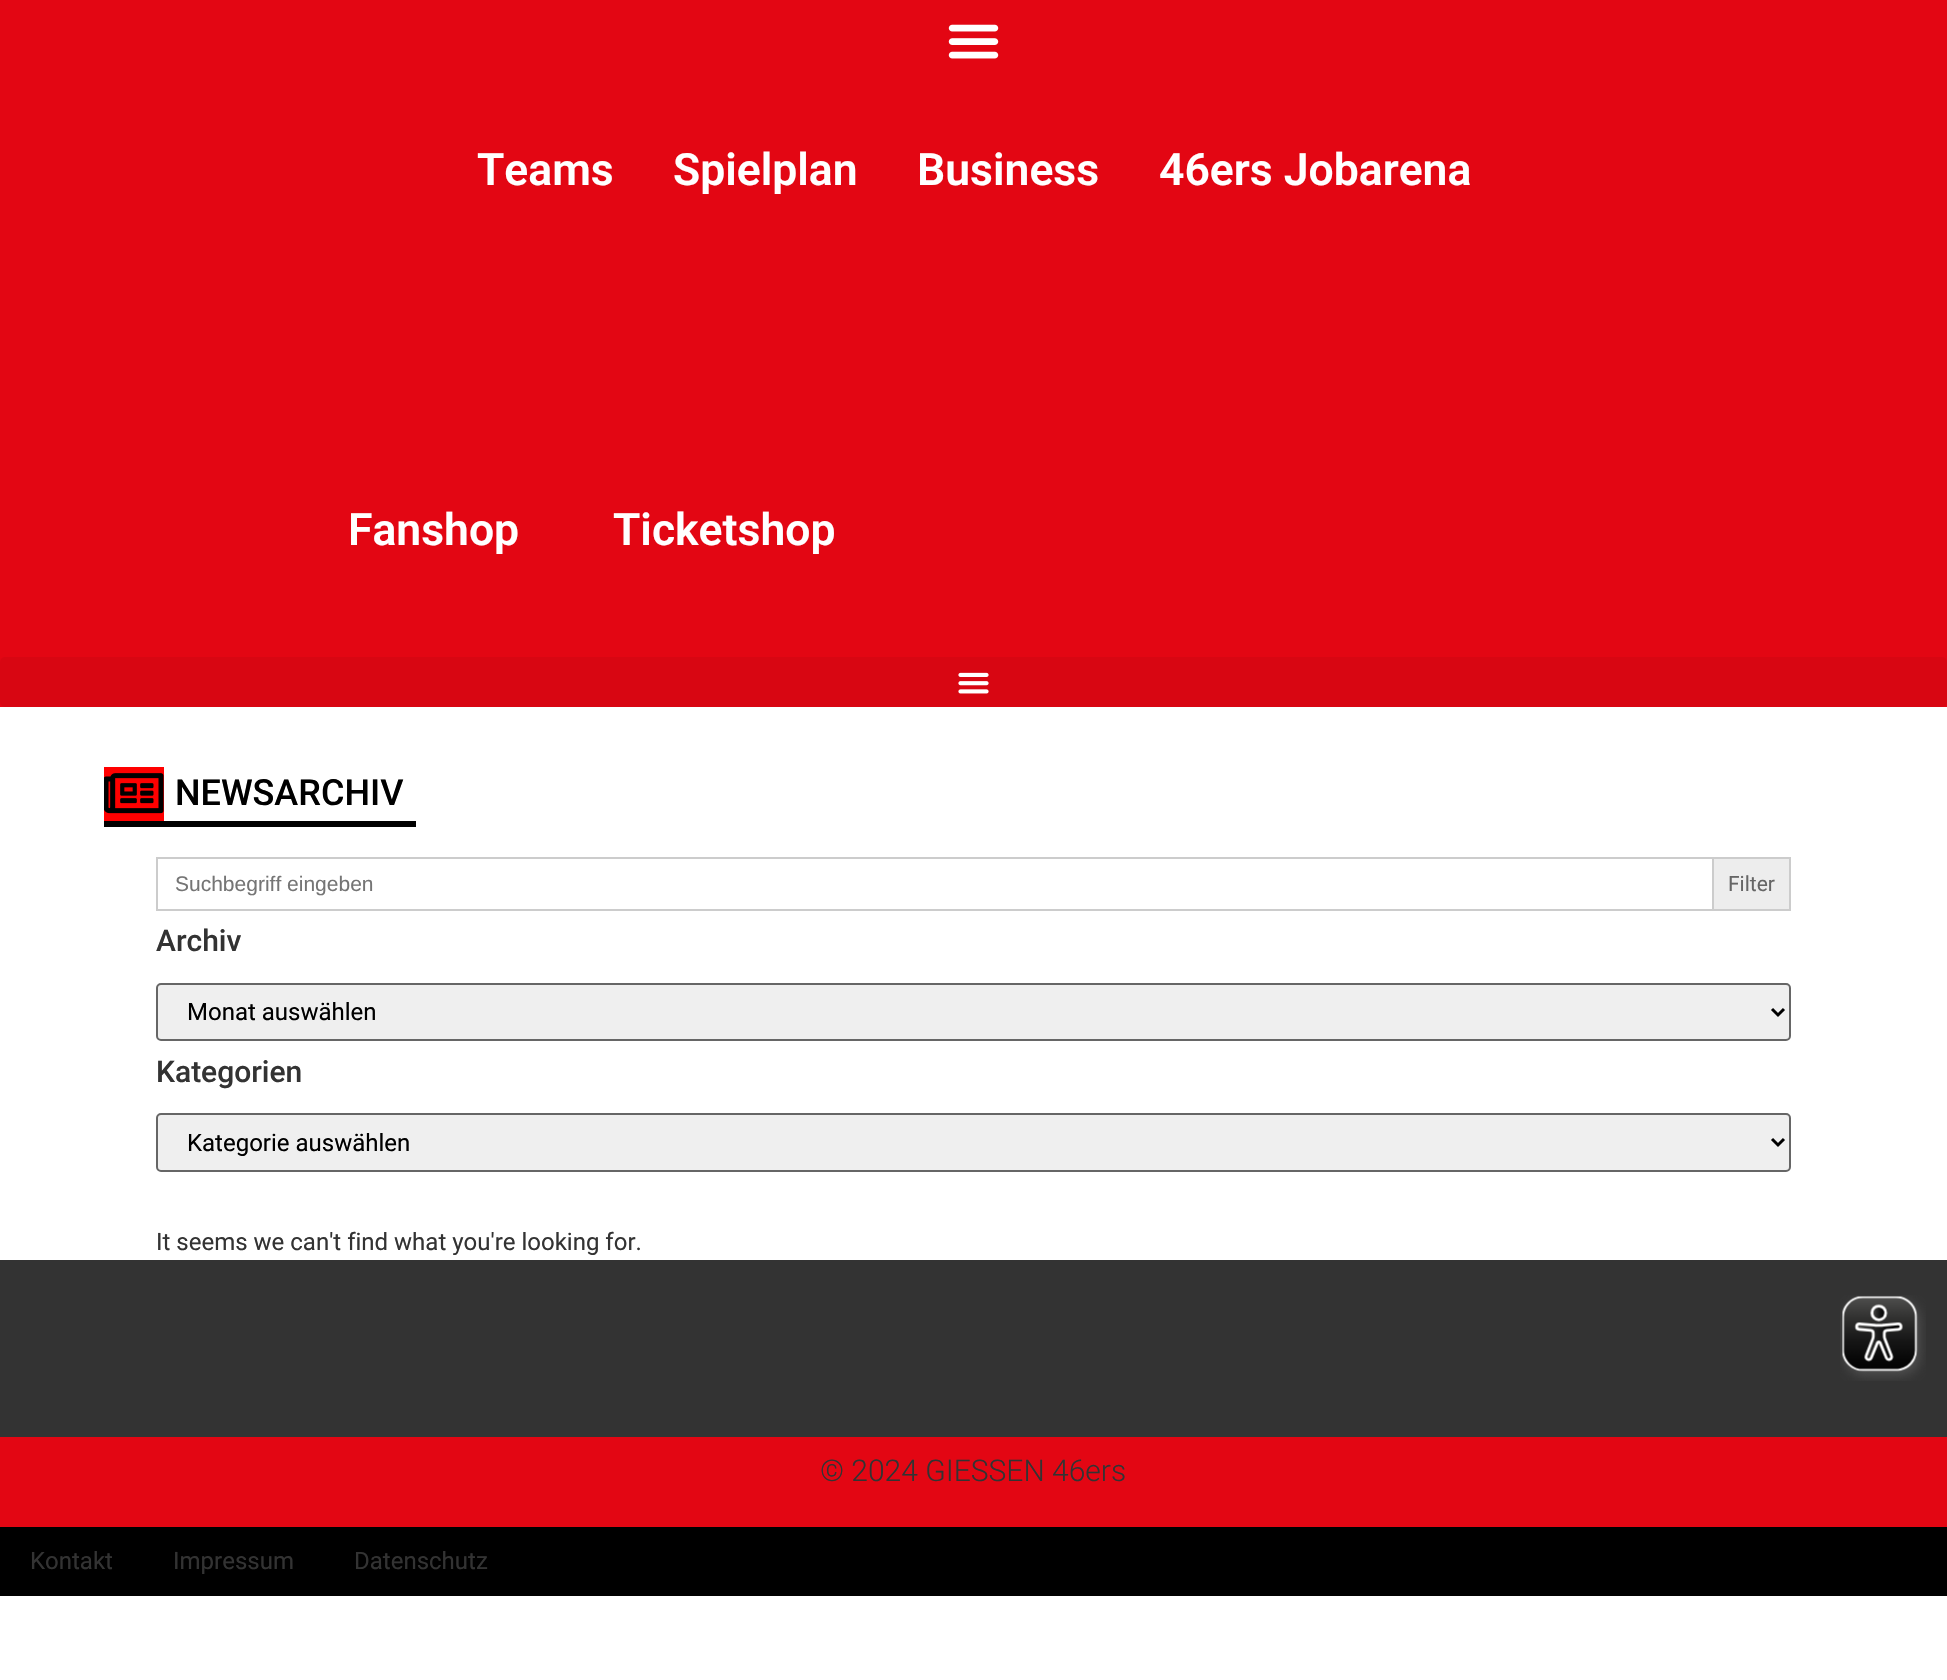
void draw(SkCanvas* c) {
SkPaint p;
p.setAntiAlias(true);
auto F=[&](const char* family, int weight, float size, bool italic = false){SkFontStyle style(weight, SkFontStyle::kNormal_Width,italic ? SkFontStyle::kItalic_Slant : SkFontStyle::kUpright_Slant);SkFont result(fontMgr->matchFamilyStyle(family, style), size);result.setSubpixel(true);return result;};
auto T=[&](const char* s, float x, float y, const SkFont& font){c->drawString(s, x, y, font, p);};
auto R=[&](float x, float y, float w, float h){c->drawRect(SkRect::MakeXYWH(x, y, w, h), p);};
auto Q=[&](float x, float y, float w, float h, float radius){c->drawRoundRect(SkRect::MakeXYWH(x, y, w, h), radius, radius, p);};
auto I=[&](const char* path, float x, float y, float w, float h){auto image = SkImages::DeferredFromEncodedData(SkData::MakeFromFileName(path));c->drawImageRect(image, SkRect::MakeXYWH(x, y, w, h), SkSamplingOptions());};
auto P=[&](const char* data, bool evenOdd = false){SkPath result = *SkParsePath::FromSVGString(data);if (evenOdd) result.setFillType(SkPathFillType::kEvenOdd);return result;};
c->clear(0xffffffff);
p.setColor(0xffe30613);
R(0,0,1947,707);
I("1.png",948,24,51,35);
auto f1 = F("Roboto",600,44.5);
p.setColor(0xffffffff);
T("Teams",477,185,f1);
T("Spielplan",673,185,f1);
T("Business",917,185,f1);
T("46ers Jobarena",1159,185,f1);
T("Fanshop",348,545,f1);
T("Ticketshop",613,545,f1);
p.setColor(0xffd80612);
Q(0,657,1947,50,5);
I("2.png",958,672,31,22);
p.setColor(0xffff0000);
R(104,767,60,54);
p.setColor(0xff000000);
R(104,821,312,6);
I("3.png",104,773,60,41);
auto f2 = F("Roboto",500,36);
T("NEWSARCHIV",175,805,f2);
p.setStroke(true);
p.setStrokeWidth(2);
p.setColor(0xffcccccc);
c->drawRect(SkRect::MakeXYWH(157,858,1633,52),p);
auto f3 = F("Liberation Sans",400,21);
p.setStroke(false);
p.setColor(0xff757575);
T("Suchbegriff eingeben",175,891,f3);
p.setColor(0xffededed);
c->drawRect(SkRect::MakeXYWH(1713,858,77,52),p);
p.setStroke(true);
p.setColor(0xffcccccc);
c->drawRect(SkRect::MakeXYWH(1713,858,77,52),p);
auto f4 = F("Roboto",400,21);
p.setStroke(false);
p.setColor(0xff666666);
T("Filter",1728,891,f4);
auto f5 = F("Roboto",500,30);
p.setColor(0xff333333);
T("Archiv",156,951,f5);
p.setColor(0xffefefef);
c->drawRoundRect(SkRect::MakeXYWH(157,984,1633,56),4,4,p);
p.setStroke(true);
p.setColor(0xff666666);
c->drawRoundRect(SkRect::MakeXYWH(157,984,1633,56),4,4,p);
p.setStrokeWidth(3);
p.setColor(0xff000000);
c->drawPath(P("M1772 1009l6 6l6-6"),p);
auto f6 = F("Roboto",400,24);
p.setStroke(false);
T("Monat auswählen",187,1020,f6);
p.setColor(0xff333333);
T("Kategorien",156,1082,f5);
p.setColor(0xffefefef);
c->drawRoundRect(SkRect::MakeXYWH(157,1114,1633,57),4,4,p);
p.setStroke(true);
p.setStrokeWidth(2);
p.setColor(0xff666666);
c->drawRoundRect(SkRect::MakeXYWH(157,1114,1633,57),4,4,p);
p.setStrokeWidth(3);
p.setColor(0xff000000);
c->drawPath(P("M1772 1139l6 6l6-6"),p);
p.setStroke(false);
T("Kategorie auswählen",187,1151,f6);
p.setColor(0xff333333);
T("It seems we can't find what you're looking for.",156,1250,f6);
R(0,1260,1947,177);
I("4.png",1840,1295,86,86);
p.setColor(0xffe30613);
R(0,1437,1947,90);
auto f7 = F("Roboto",300,30);
p.setColor(0xff333333);
T("© 2024 GIESSEN 46ers",820,1481,f7);
p.setColor(0xff000000);
R(0,1527,1947,69);
p.setColor(0xff333333);
T("Kontakt",30,1569,f6);
T("Impressum",173,1569,f6);
T("Datenschutz",354,1569,f6);
}
